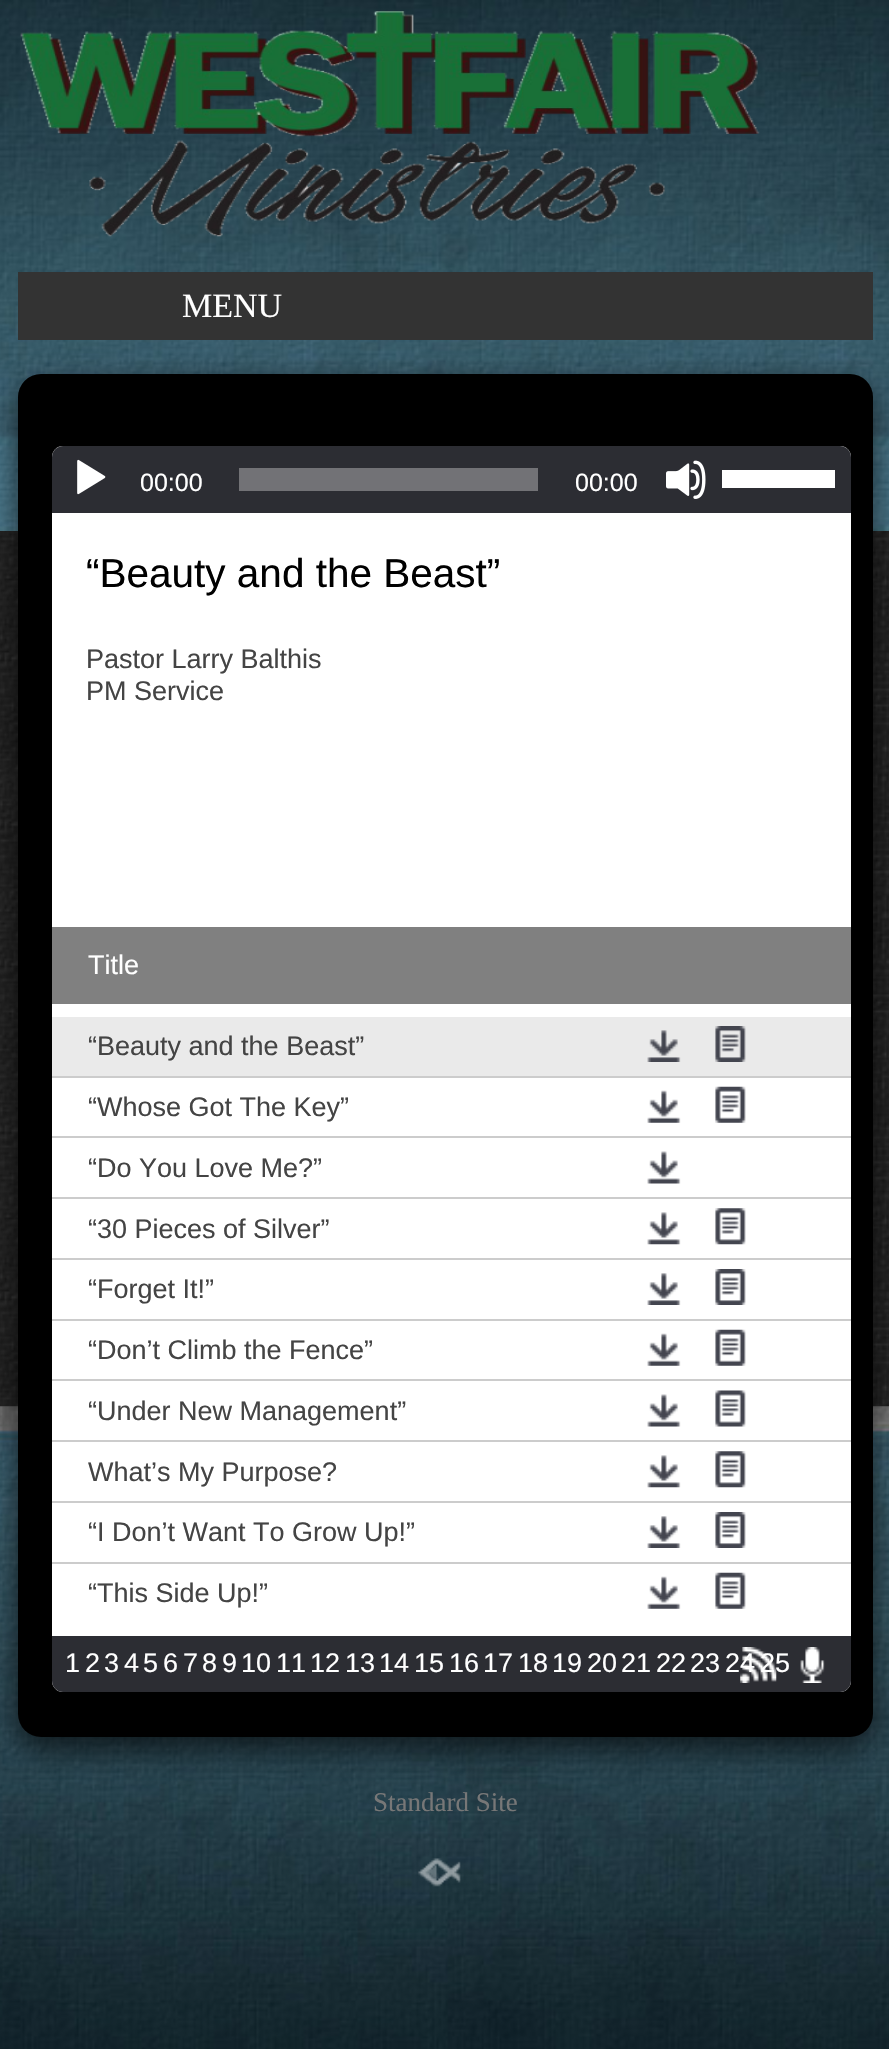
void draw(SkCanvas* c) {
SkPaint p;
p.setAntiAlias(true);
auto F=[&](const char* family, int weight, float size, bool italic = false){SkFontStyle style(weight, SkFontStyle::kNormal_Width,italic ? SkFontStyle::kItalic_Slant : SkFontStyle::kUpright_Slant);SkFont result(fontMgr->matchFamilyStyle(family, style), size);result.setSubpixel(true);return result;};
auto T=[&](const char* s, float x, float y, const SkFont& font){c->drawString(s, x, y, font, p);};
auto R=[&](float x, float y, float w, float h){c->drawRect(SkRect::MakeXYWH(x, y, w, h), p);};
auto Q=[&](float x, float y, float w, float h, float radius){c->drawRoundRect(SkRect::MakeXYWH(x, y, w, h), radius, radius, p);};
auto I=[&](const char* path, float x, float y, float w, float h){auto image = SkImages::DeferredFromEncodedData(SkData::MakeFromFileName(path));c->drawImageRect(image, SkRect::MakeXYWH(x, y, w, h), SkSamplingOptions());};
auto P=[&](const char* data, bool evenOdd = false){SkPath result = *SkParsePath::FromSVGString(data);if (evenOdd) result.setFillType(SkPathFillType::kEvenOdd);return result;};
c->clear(0xffffffff);
I("1.png",0,531,889,876);
I("2.png",0,0,889,531);
I("3.png",0,1406,889,643);
I("4.png",20,11,740,226);
p.setColor(0xb3000000);
p.setMaskFilter(SkMaskFilter::MakeBlur(kNormal_SkBlurStyle, 17));
c->drawRoundRect(SkRect::MakeXYWH(18,385,855,1363),23,23,p);
p.setMaskFilter(nullptr);
p.setColor(0xff333333);
R(18,272,855,68);
auto f1 = F("Liberation Serif",400,34);
p.setColor(0xffffffff);
T("MENU",182,317,f1);
p.setColor(0xff000000);
Q(18,374,855,1363,23);
p.setColor(0xffffffff);
Q(52,446,799,1246,11);
p.setColor(0xff2c2d33);
c->drawPath(P("M63 446h777c6 0 11 5 11 11v56h-799v-56c0-6 5-11 11-11z"),p);
I("5.png",77,459,29,36);
auto f2 = F("Liberation Sans",400,25);
p.setColor(0xffffffff);
T("00:00",140,491,f2);
p.setColor(0xff727276);
R(239,468,299,23);
p.setColor(0xffffffff);
T("00:00",575,491,f2);
I("6.png",666,460,40,39);
R(722,470,113,18);
auto f3 = F("Liberation Sans",400,40.5);
p.setColor(0xff000000);
T("“Beauty and the Beast”",86,587,f3);
auto f4 = F("Liberation Sans",400,27);
p.setColor(0xff444444);
T("Pastor Larry Balthis",86,668,f4);
T("PM Service",86,700,f4);
p.setColor(0xff808080);
R(52,927,799,77);
p.setColor(0xffffffff);
T("Title",88,974,f4);
p.setColor(0xffeaeaea);
R(52,1017,799,59);
p.setColor(0xff444444);
T("“Beauty and the Beast”",88,1055,f4);
I("7.png",647,1030,34,32);
I("8.png",715,1026,31,36);
p.setColor(0xffcccccc);
R(52,1076,799,2);
p.setColor(0xff444444);
T("“Whose Got The Key”",88,1116,f4);
I("9.png",647,1090,34,33);
I("10.png",715,1086,31,37);
p.setColor(0xffcccccc);
R(52,1136,799,2);
p.setColor(0xff444444);
T("“Do You Love Me?”",88,1177,f4);
I("11.png",647,1151,34,33);
p.setColor(0xffcccccc);
R(52,1197,799,2);
p.setColor(0xff444444);
T("“30 Pieces of Silver”",88,1238,f4);
I("12.png",647,1212,34,33);
I("13.png",715,1208,31,37);
p.setColor(0xffcccccc);
R(52,1258,799,2);
p.setColor(0xff444444);
T("“Forget It!”",88,1298,f4);
I("14.png",647,1273,34,32);
I("15.png",715,1269,31,36);
p.setColor(0xffcccccc);
R(52,1319,799,2);
p.setColor(0xff444444);
T("“Don’t Climb the Fence”",88,1359,f4);
I("9.png",647,1333,34,33);
I("10.png",715,1329,31,37);
p.setColor(0xffcccccc);
R(52,1379,799,2);
p.setColor(0xff444444);
T("“Under New Management”",88,1420,f4);
I("16.png",647,1394,34,33);
I("17.png",715,1390,31,37);
p.setColor(0xffcccccc);
R(52,1440,799,2);
p.setColor(0xff444444);
T("What’s My Purpose?",88,1481,f4);
I("12.png",647,1455,34,33);
I("13.png",715,1451,31,37);
p.setColor(0xffcccccc);
R(52,1501,799,2);
p.setColor(0xff444444);
T("“I Don’t Want To Grow Up!”",88,1541,f4);
I("14.png",647,1516,34,32);
I("15.png",715,1512,31,36);
p.setColor(0xffcccccc);
R(52,1562,799,2);
p.setColor(0xff444444);
T("“This Side Up!”",88,1602,f4);
I("9.png",647,1576,34,33);
I("10.png",715,1572,31,37);
p.setColor(0xff2c2d33);
c->drawPath(P("M52 1636h799v45c0 6-5 11-11 11h-777c-6 0-11-5-11-11z"),p);
p.setColor(0xffffffff);
T("1",65,1672,f4);
T("2",85,1672,f4);
T("3",104,1672,f4);
T("4",124,1672,f4);
T("5",143,1672,f4);
T("6",163,1672,f4);
T("7",183,1672,f4);
T("8",202,1672,f4);
T("9",222,1672,f4);
T("10",241,1672,f4);
T("11",276,1672,f4);
T("12",310,1672,f4);
T("13",345,1672,f4);
T("14",379,1672,f4);
T("15",414,1672,f4);
T("16",449,1672,f4);
T("17",483,1672,f4);
T("18",518,1672,f4);
T("19",552,1672,f4);
T("20",587,1672,f4);
T("21",621,1672,f4);
T("22",656,1672,f4);
T("23",690,1672,f4);
T("24",725,1672,f4);
T("25",760,1672,f4);
I("18.png",740,1647,37,36);
I("19.png",800,1647,25,36);
auto f5 = F("Liberation Serif",400,27);
p.setColor(0xff777777);
T("Standard Site",373,1811,f5);
I("20.png",418,1858,43,29);
}
